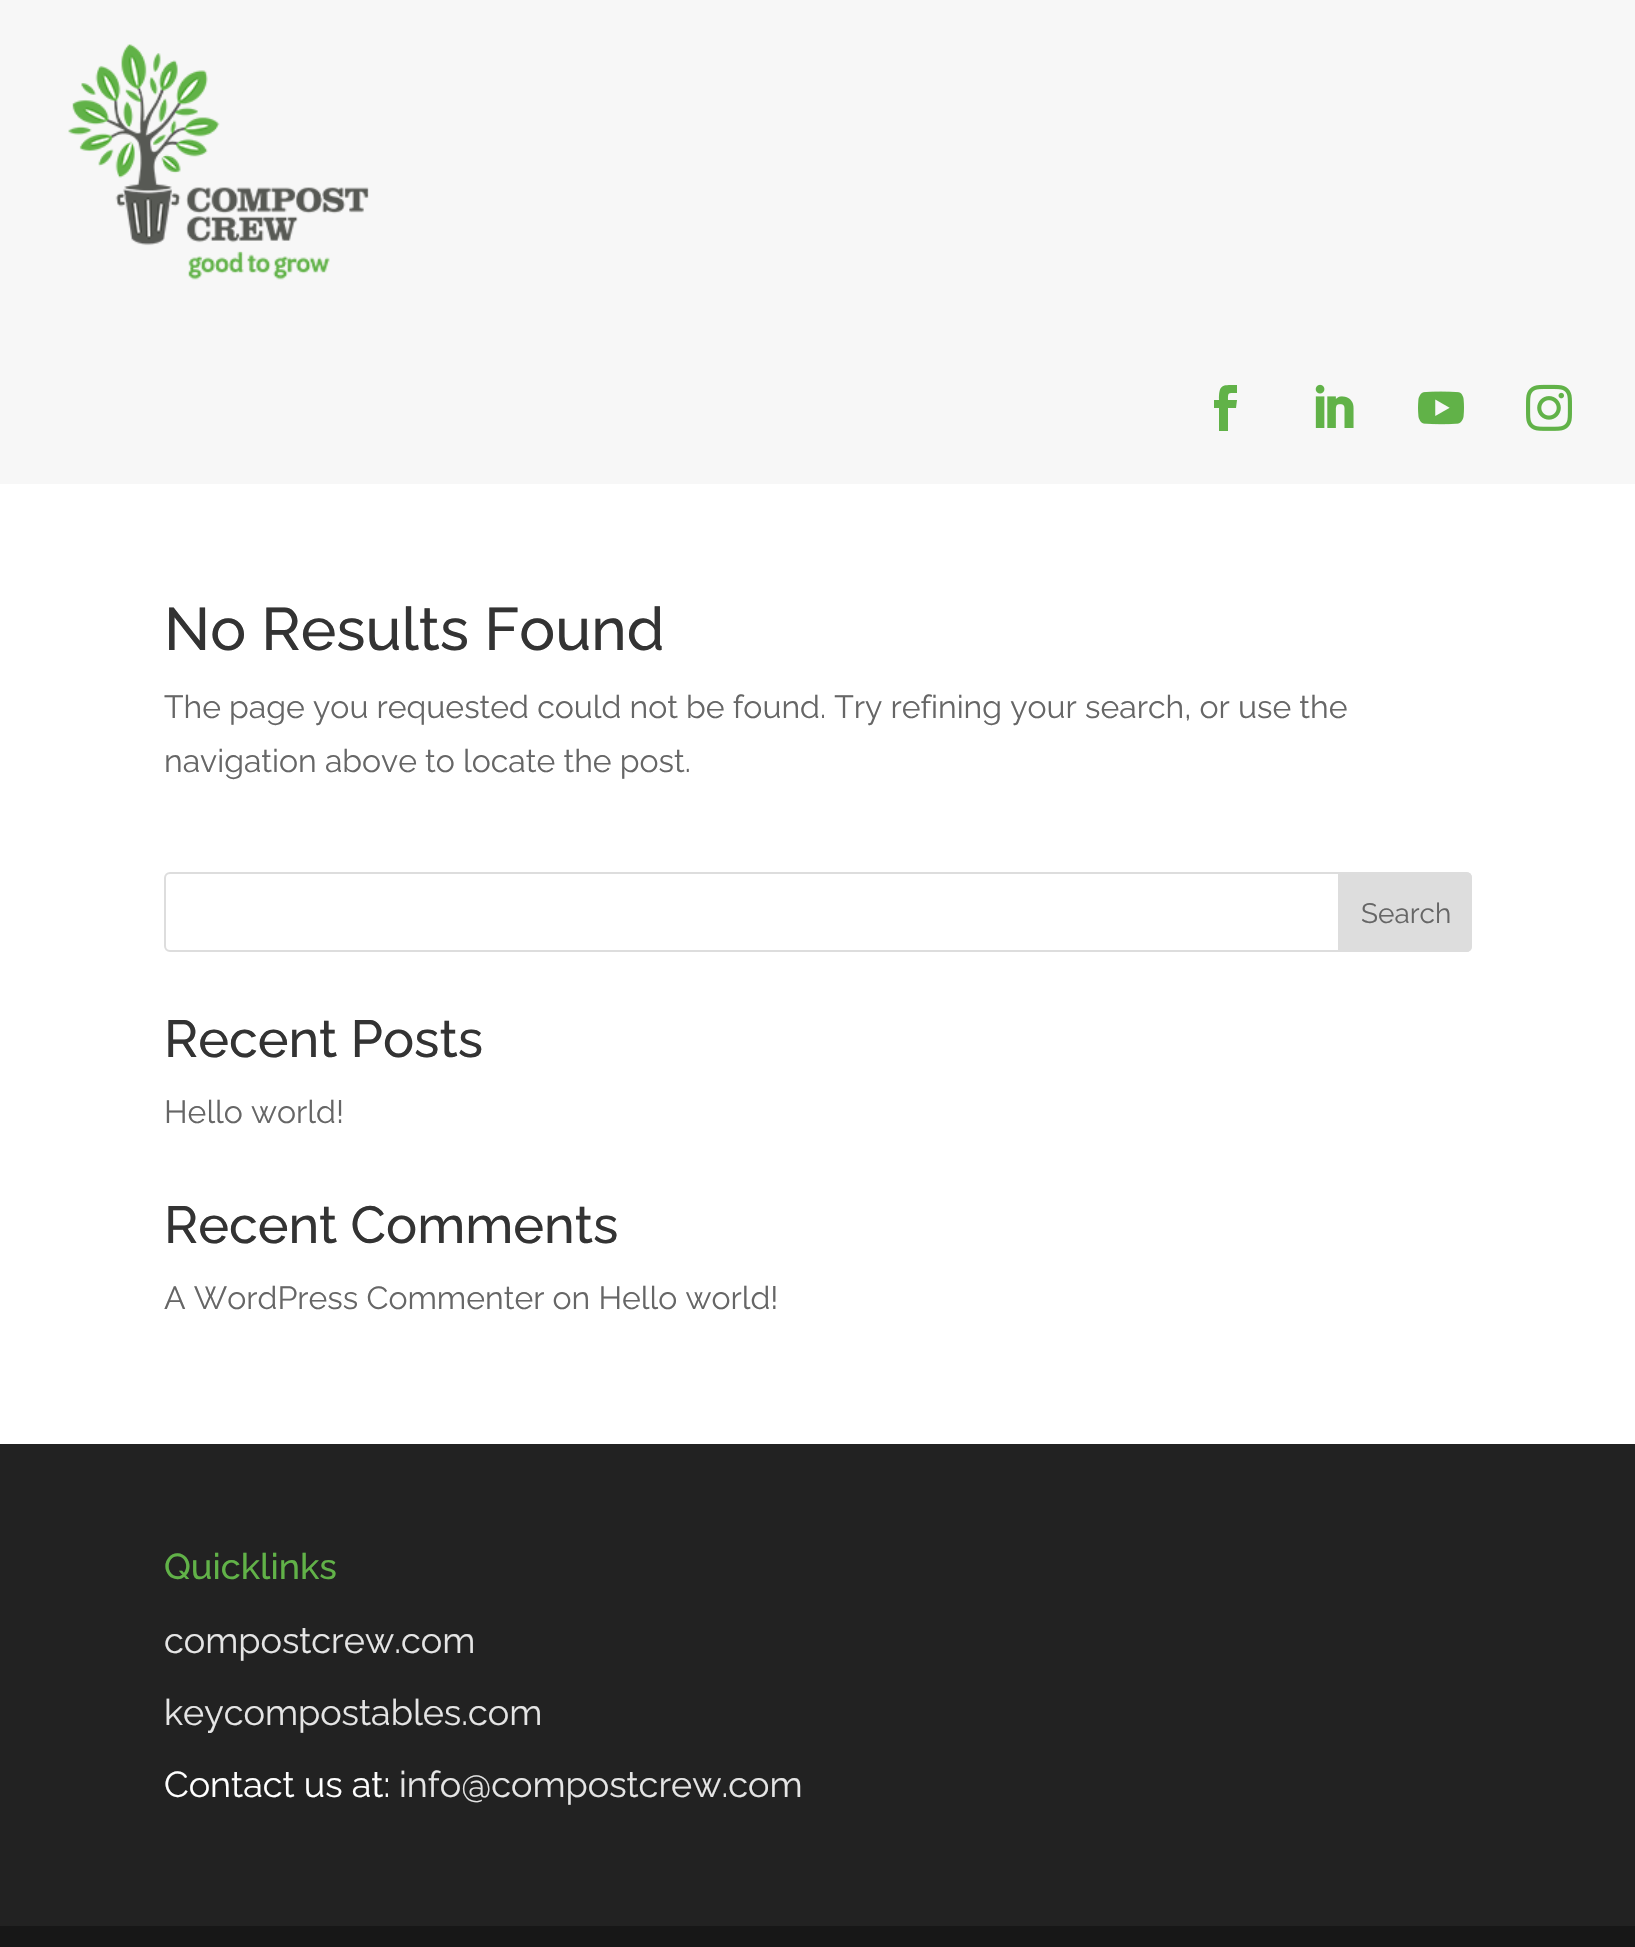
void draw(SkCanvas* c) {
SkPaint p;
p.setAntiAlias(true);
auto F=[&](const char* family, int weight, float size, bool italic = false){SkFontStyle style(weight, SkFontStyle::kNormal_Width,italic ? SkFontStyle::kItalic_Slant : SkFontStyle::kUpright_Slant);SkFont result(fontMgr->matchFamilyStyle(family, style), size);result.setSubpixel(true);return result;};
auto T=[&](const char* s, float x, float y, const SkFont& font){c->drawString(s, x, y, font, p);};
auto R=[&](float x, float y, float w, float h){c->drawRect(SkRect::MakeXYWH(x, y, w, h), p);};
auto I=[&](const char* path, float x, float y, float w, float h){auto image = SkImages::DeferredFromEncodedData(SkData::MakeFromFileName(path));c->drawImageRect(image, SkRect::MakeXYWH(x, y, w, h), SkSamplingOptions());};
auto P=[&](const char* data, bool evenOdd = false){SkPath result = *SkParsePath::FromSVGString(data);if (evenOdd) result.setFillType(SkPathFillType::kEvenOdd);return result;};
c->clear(0xffffffff);
p.setColor(0xfff7f7f7);
R(0,0,1635,484);
I("1.png",68,44,301,236);
p.setColor(0xff61b248);
c->drawPath(P("M1219 431h9v-23h8l1-8h-9c0-8 0-7 9-7v-8c-15 0-18-1-18 15h-5v8h5z"),p);
I("2.png",1315,384,39,44);
I("3.png",1418,391,46,34);
I("4.png",1526,384,46,47);
auto f1 = F("Raleway",500,60);
p.setColor(0xff333333);
T("No Results Found",164,650,f1);
auto f2 = F("Raleway",400,32);
p.setColor(0xff666666);
T("The page you requested could not be found. Try refining your search, or use the",164,718,f2);
T("navigation above to locate the post.",164,772,f2);
p.setStroke(true);
p.setStrokeWidth(2);
p.setColor(0xffdddddd);
c->drawRoundRect(SkRect::MakeXYWH(165,873,1306,78),5,5,p);
p.setStroke(false);
c->drawPath(P("M1339 873h127c3 0 5 2 5 5v68c0 3-2 5-5 5h-127z"),p);
p.setStroke(true);
c->drawPath(P("M1339 873h127c3 0 5 2 5 5v68c0 3-2 5-5 5h-127z"),p);
auto f3 = F("Raleway",400,28);
p.setStroke(false);
p.setColor(0xff666666);
T("Search",1361,923,f3);
auto f4 = F("Raleway",500,52);
p.setColor(0xff333333);
T("Recent Posts",164,1057,f4);
p.setColor(0xff666666);
T("Hello world!",164,1123,f2);
p.setColor(0xff333333);
T("Recent Comments",164,1243,f4);
p.setColor(0xff666666);
T("A WordPress Commenter on Hello world!",164,1309,f2);
p.setColor(0xff222222);
R(0,1444,1635,482);
auto f5 = F("Raleway",500,36);
p.setColor(0xff61b248);
T("Quicklinks",164,1579,f5);
auto f6 = F("Raleway",400,36);
p.setColor(0xffe5e5e5);
T("compostcrew.com",164,1653,f6);
T("keycompostables.com",164,1725,f6);
p.setColor(0xffffffff);
T("Contact us at:",164,1797,f6);
p.setColor(0xffe5e5e5);
T("info@compostcrew.com",399,1797,f6);
p.setColor(0xff171717);
R(0,1926,1635,21);
}
